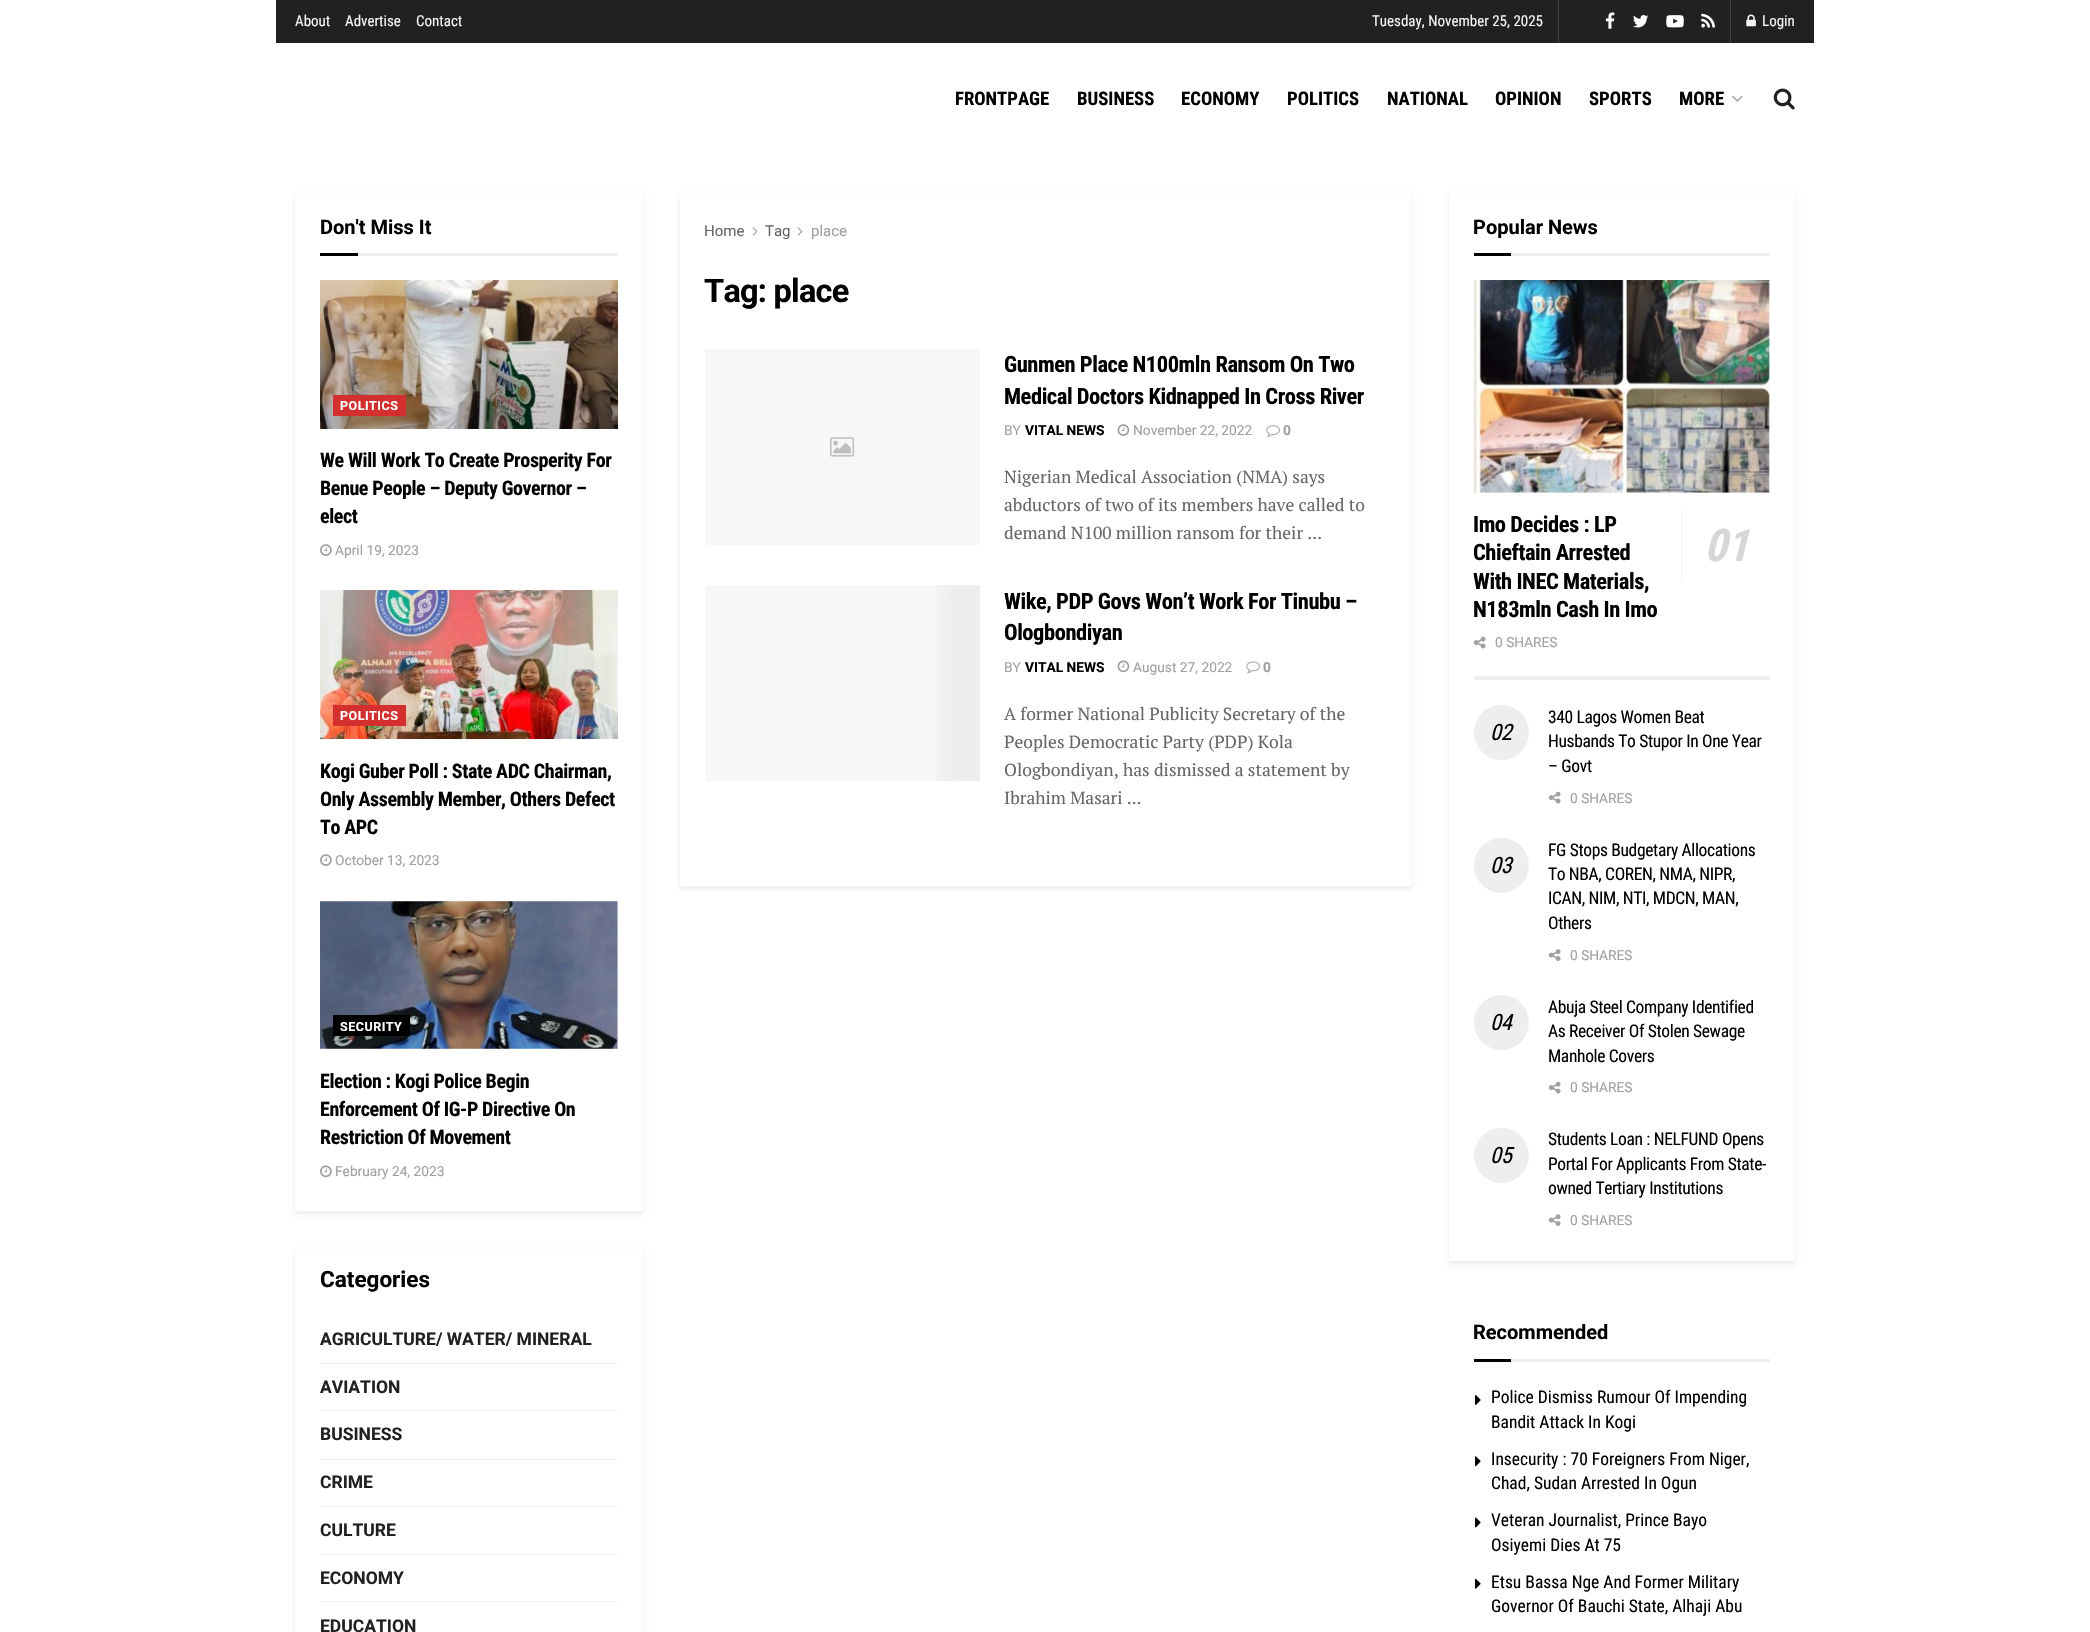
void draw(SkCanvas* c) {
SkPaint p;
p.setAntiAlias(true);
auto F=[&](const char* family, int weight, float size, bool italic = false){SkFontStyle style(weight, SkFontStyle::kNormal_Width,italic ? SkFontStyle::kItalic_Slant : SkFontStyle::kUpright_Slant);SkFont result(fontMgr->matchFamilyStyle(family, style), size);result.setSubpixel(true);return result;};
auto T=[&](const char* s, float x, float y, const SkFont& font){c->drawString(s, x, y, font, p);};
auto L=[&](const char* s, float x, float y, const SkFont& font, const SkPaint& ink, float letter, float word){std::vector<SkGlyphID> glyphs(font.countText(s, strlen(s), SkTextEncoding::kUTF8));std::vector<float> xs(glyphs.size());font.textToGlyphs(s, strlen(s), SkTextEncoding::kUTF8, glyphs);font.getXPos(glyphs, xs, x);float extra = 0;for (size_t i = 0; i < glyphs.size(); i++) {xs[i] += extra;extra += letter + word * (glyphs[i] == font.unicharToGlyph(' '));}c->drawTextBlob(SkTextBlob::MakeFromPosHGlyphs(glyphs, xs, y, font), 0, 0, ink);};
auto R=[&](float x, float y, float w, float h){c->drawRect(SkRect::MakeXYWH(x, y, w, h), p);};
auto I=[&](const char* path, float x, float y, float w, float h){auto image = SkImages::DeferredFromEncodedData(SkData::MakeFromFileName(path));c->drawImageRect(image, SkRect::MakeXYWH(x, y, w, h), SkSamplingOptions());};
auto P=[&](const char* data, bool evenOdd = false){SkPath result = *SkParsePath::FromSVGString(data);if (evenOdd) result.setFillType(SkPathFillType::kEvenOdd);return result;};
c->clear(0xffffffff);
p.setColor(0xff212121);
R(276,0,1538,43);
p.setColor(0xff424242);
R(1730,0,1,43);
auto f1 = F("Roboto Condensed",400,15);
p.setColor(0xfff5f5f5);
T("About",295,26,f1);
T("Advertise",345,26,f1);
T("Contact",416,26,f1);
p.setColor(0xff424242);
R(1558,0,1,43);
p.setColor(0xfff5f5f5);
T("Tuesday, November 25, 2025",1372,26,f1);
I("1.png",1605,12,10,17);
I("2.png",1633,15,16,13);
I("3.png",1666,15,18,13);
I("4.png",1701,13,14,15);
I("5.png",1746,14,10,13);
T("Login",1762,26,f1);
auto f2 = F("Roboto Condensed",700,18.75);
p.setColor(0xff000000);
T("FRONTPAGE",955,105,f2);
T("BUSINESS",1077,105,f2);
T("ECONOMY",1181,105,f2);
T("POLITICS",1287,105,f2);
T("NATIONAL",1387,105,f2);
T("OPINION",1495,105,f2);
T("SPORTS",1589,105,f2);
T("MORE",1679,105,f2);
I("6.png",1732,95,11,7);
I("7.png",1773,88,22,22);
p.setColor(0x14000000);
p.setMaskFilter(SkMaskFilter::MakeBlur(kNormal_SkBlurStyle, 2.5));
c->drawRect(SkRect::MakeXYWH(295,195,348,1019),p);
p.setMaskFilter(nullptr);
p.setColor(0xffffffff);
R(295,193,348,1018);
p.setColor(0xffeeeeee);
R(358,253,260,3);
auto f3 = F("Roboto",700,20);
p.setColor(0xff000000);
T("Don't Miss It",320,234,f3);
R(320,253,38,3);
I("8.png",320,280,298,149);
p.setColor(0xffd32f2f);
R(333,395,73,21);
auto f4 = F("Roboto",700,12.5);
p.setColor(0xffffffff);
L("POLITICS",340,410,f4,p,.5,0);
auto f5 = F("Roboto Condensed",700,20);
p.setColor(0xff000000);
L("We Will Work To Create Prosperity For",320,467,f5,p,-.4,0);
L("Benue People – Deputy Governor –",320,495,f5,p,-.4,0);
L("elect",320,523,f5,p,-.4,0);
I("9.png",320,544,12,12);
auto f6 = F("Roboto",400,13.75);
p.setColor(0xffa0a0a0);
T("April 19, 2023",335,555,f6);
I("10.png",320,590,298,149);
p.setColor(0xffd32f2f);
R(333,705,73,21);
p.setColor(0xffffffff);
L("POLITICS",340,720,f4,p,.5,0);
p.setColor(0xff000000);
L("Kogi Guber Poll : State ADC Chairman,",320,778,f5,p,-.4,0);
L("Only Assembly Member, Others Defect",320,806,f5,p,-.4,0);
L("To APC",320,834,f5,p,-.4,0);
I("9.png",320,854,12,12);
p.setColor(0xffa0a0a0);
T("October 13, 2023",335,865,f6);
p.setColor(0xfff7f7f7);
R(320,901,298,148);
I("11.png",320,901,298,148);
p.setColor(0xff000000);
R(333,1015,77,21);
p.setColor(0xffffffff);
L("SECURITY",340,1031,f4,p,.5,0);
p.setColor(0xff000000);
L("Election : Kogi Police Begin",320,1088,f5,p,-.4,0);
L("Enforcement Of IG-P Directive On",320,1116,f5,p,-.4,0);
L("Restriction Of Movement",320,1144,f5,p,-.4,0);
I("12.png",320,1165,12,13);
p.setColor(0xffa0a0a0);
T("February 24, 2023",335,1176,f6);
p.setColor(0x14000000);
p.setMaskFilter(SkMaskFilter::MakeBlur(kNormal_SkBlurStyle, 2.5));
c->drawRect(SkRect::MakeXYWH(295,1251,348,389),p);
p.setMaskFilter(nullptr);
p.setColor(0xffffffff);
R(295,1249,348,383);
auto f7 = F("Roboto",700,22.5);
p.setColor(0xff000000);
T("Categories",320,1287,f7);
auto f8 = F("Roboto",700,17.5);
p.setColor(0xff212121);
T("AGRICULTURE/ WATER/ MINERAL",320,1345,f8);
p.setColor(0xffeeeeee);
R(320,1363,298,1);
p.setColor(0xff212121);
T("AVIATION",320,1393,f8);
p.setColor(0xffeeeeee);
R(320,1410,298,1);
p.setColor(0xff212121);
T("BUSINESS",320,1440,f8);
p.setColor(0xffeeeeee);
R(320,1459,298,1);
p.setColor(0xff212121);
T("CRIME",320,1488,f8);
p.setColor(0xffeeeeee);
R(320,1506,298,1);
p.setColor(0xff212121);
T("CULTURE",320,1536,f8);
p.setColor(0xffeeeeee);
R(320,1554,298,1);
p.setColor(0xff212121);
T("ECONOMY",320,1584,f8);
p.setColor(0xffeeeeee);
R(320,1601,298,1);
p.setColor(0xff212121);
T("EDUCATION",320,1632,f8);
c->save();
c->clipPath(P("M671 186h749v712h-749zm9 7h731v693h-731z",true),true);
p.setColor(0x14000000);
p.setMaskFilter(SkMaskFilter::MakeBlur(kNormal_SkBlurStyle, 2.5));
c->drawRect(SkRect::MakeXYWH(680,195,731,694),p);
p.setMaskFilter(nullptr);
c->restore();
auto f9 = F("Roboto",400,15);
p.setColor(0xff666666);
T("Home",704,236,f9);
I("13.png",752,227,6,9);
T("Tag",765,236,f9);
I("13.png",797,227,6,9);
p.setColor(0xffa0a0a0);
T("place",811,236,f9);
auto f10 = F("Roboto",700,32.5);
p.setColor(0xff000000);
L("Tag: place",704,302,f10,p,-.75,0);
p.setColor(0xfff7f7f7);
R(705,349,275,196);
I("14.png",830,437,25,20);
auto f11 = F("Roboto Condensed",700,22.5);
p.setColor(0xff000000);
L("Gunmen Place N100mln Ransom On Two",1004,372,f11,p,-.45,0);
L("Medical Doctors Kidnapped In Cross River",1004,404,f11,p,-.45,0);
p.setColor(0xffa0a0a0);
T("BY",1004,435,f6);
auto f12 = F("Roboto",700,13.75);
p.setColor(0xff000000);
T("VITAL NEWS",1025,435,f12);
I("15.png",1117,424,13,12);
p.setColor(0xffa0a0a0);
T("November 22, 2022",1133,435,f6);
I("16.png",1266,425,14,12);
T("0",1283,435,f12);
auto f13 = F("PT Serif",400,17.5);
p.setColor(0xff666666);
T("Nigerian Medical Association (NMA) says",1004,483,f13);
T("abductors of two of its members have called to",1004,511,f13);
T("demand N100 million ransom for their ...",1004,539,f13);
p.setColor(0xfff7f7f7);
R(705,585,231,196);
I("17.png",936,585,44,196);
p.setColor(0xff000000);
L("Wike, PDP Govs Won’t Work For Tinubu –",1004,609,f11,p,-.45,0);
L("Ologbondiyan",1004,640,f11,p,-.45,0);
p.setColor(0xffa0a0a0);
T("BY",1004,672,f6);
p.setColor(0xff000000);
T("VITAL NEWS",1025,672,f12);
I("18.png",1117,660,13,13);
p.setColor(0xffa0a0a0);
T("August 27, 2022",1133,672,f6);
I("19.png",1246,661,14,13);
T("0",1263,672,f12);
p.setColor(0xff666666);
T("A former National Publicity Secretary of the",1004,720,f13);
T("Peoples Democratic Party (PDP) Kola",1004,748,f13);
T("Ologbondiyan, has dismissed a statement by",1004,776,f13);
T("Ibrahim Masari ...",1004,804,f13);
c->save();
c->clipPath(P("M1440 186h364v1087h-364zm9 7h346v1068h-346z",true),true);
p.setColor(0x14000000);
p.setMaskFilter(SkMaskFilter::MakeBlur(kNormal_SkBlurStyle, 2.5));
c->drawRect(SkRect::MakeXYWH(1449,195,346,1069),p);
p.setMaskFilter(nullptr);
c->restore();
p.setColor(0xffeeeeee);
R(1511,253,259,3);
p.setColor(0xff000000);
T("Popular News",1473,234,f3);
R(1474,253,37,3);
p.setColor(0xffeeeeee);
R(1474,676,296,4);
p.setColor(0xfff7f7f7);
R(1474,492,296,1);
I("20.png",1473,280,297,213);
p.setColor(0xff000000);
L("Imo Decides : LP",1473,532,f11,p,-.45,0);
L("Chieftain Arrested",1473,560,f11,p,-.45,0);
p.setColor(0xffeeeeee);
R(1681,511,1,70);
auto f14 = F("Roboto Condensed",700,45,true);
p.setColor(0xffd7d7d7);
L("01",1704,561,f14,p,-.45,0);
p.setColor(0xff000000);
L("With INEC Materials,",1473,589,f11,p,-.45,0);
L("N183mln Cash In Imo",1473,617,f11,p,-.45,0);
I("21.png",1473,636,13,13);
p.setColor(0xffa0a0a0);
T("0 SHARES",1495,647,f6);
auto f15 = F("Roboto Condensed",400,17.5);
p.setColor(0xff000000);
L("340 Lagos Women Beat",1548,723,f15,p,-.35,0);
p.setColor(0xffeeeeee);
c->drawCircle(1501.5,732.5,27.5,p);
auto f16 = F("Roboto Condensed",400,22.5,true);
p.setColor(0xff000000);
L("02",1490,740,f16,p,-.35,0);
L("Husbands To Stupor In One Year",1548,747,f15,p,-.35,0);
L("– Govt",1548,772,f15,p,-.35,0);
I("21.png",1548,791,13,13);
p.setColor(0xffa0a0a0);
T("0 SHARES",1570,803,f6);
p.setColor(0xff000000);
L("FG Stops Budgetary Allocations",1548,856,f15,p,-.35,0);
p.setColor(0xffeeeeee);
c->drawCircle(1501.5,865.5,27.5,p);
p.setColor(0xff000000);
L("03",1490,873,f16,p,-.35,0);
L("To NBA, COREN, NMA, NIPR,",1548,880,f15,p,-.35,0);
L("ICAN, NIM, NTI, MDCN, MAN,",1548,904,f15,p,-.35,0);
L("Others",1548,929,f15,p,-.35,0);
I("22.png",1548,949,13,12);
p.setColor(0xffa0a0a0);
T("0 SHARES",1570,960,f6);
p.setColor(0xff000000);
L("Abuja Steel Company Identified",1548,1013,f15,p,-.35,0);
p.setColor(0xffeeeeee);
c->drawCircle(1501.5,1022.5,27.5,p);
p.setColor(0xff000000);
L("04",1490,1030,f16,p,-.35,0);
L("As Receiver Of Stolen Sewage",1548,1037,f15,p,-.35,0);
L("Manhole Covers",1548,1062,f15,p,-.35,0);
I("21.png",1548,1081,13,13);
p.setColor(0xffa0a0a0);
T("0 SHARES",1570,1092,f6);
p.setColor(0xff000000);
L("Students Loan : NELFUND Opens",1548,1145,f15,p,-.35,0);
p.setColor(0xffeeeeee);
c->drawCircle(1501.5,1155.5,27.5,p);
p.setColor(0xff000000);
L("05",1490,1163,f16,p,-.35,0);
L("Portal For Applicants From State-",1548,1170,f15,p,-.35,0);
L("owned Tertiary Institutions",1548,1194,f15,p,-.35,0);
I("22.png",1548,1214,13,12);
p.setColor(0xffa0a0a0);
T("0 SHARES",1570,1225,f6);
p.setColor(0xffeeeeee);
R(1511,1359,259,3);
p.setColor(0xff000000);
T("Recommended",1473,1339,f3);
R(1474,1359,37,3);
I("23.png",1475,1395,6,10);
T("Police Dismiss Rumour Of Impending",1491,1403,f15);
T("Bandit Attack In Kogi",1491,1428,f15);
I("24.png",1475,1456,6,11);
T("Insecurity : 70 Foreigners From Niger,",1491,1465,f15);
T("Chad, Sudan Arrested In Ogun",1491,1489,f15);
I("25.png",1475,1517,6,11);
T("Veteran Journalist, Prince Bayo",1491,1526,f15);
T("Osiyemi Dies At 75",1491,1551,f15);
I("26.png",1475,1578,6,11);
T("Etsu Bassa Nge And Former Military",1491,1588,f15);
T("Governor Of Bauchi State, Alhaji Abu",1491,1612,f15);
}
